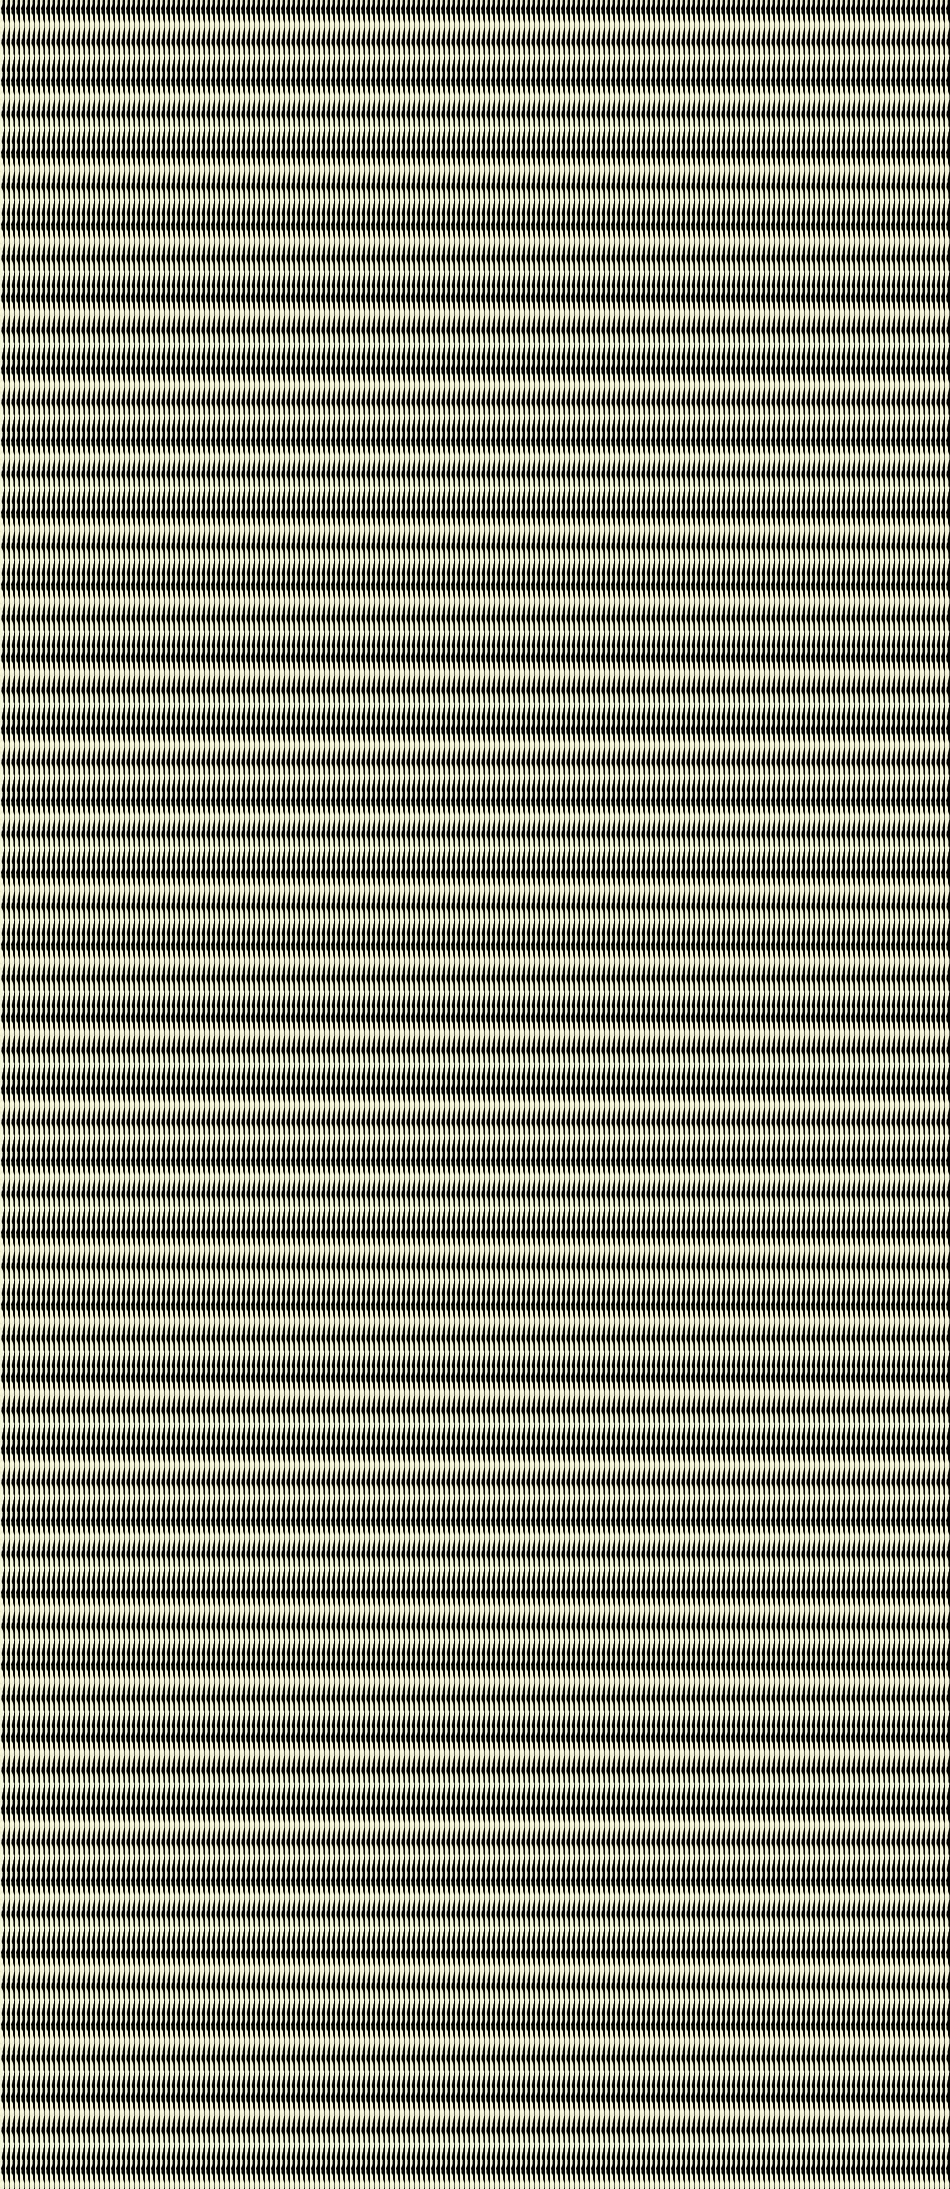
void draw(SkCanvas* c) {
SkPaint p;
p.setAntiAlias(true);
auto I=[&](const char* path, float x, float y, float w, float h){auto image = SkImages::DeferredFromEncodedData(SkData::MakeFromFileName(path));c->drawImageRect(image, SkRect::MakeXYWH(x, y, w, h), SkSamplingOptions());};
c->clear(0xffffffff);
I("1.png",0,0,950,2189);
}
